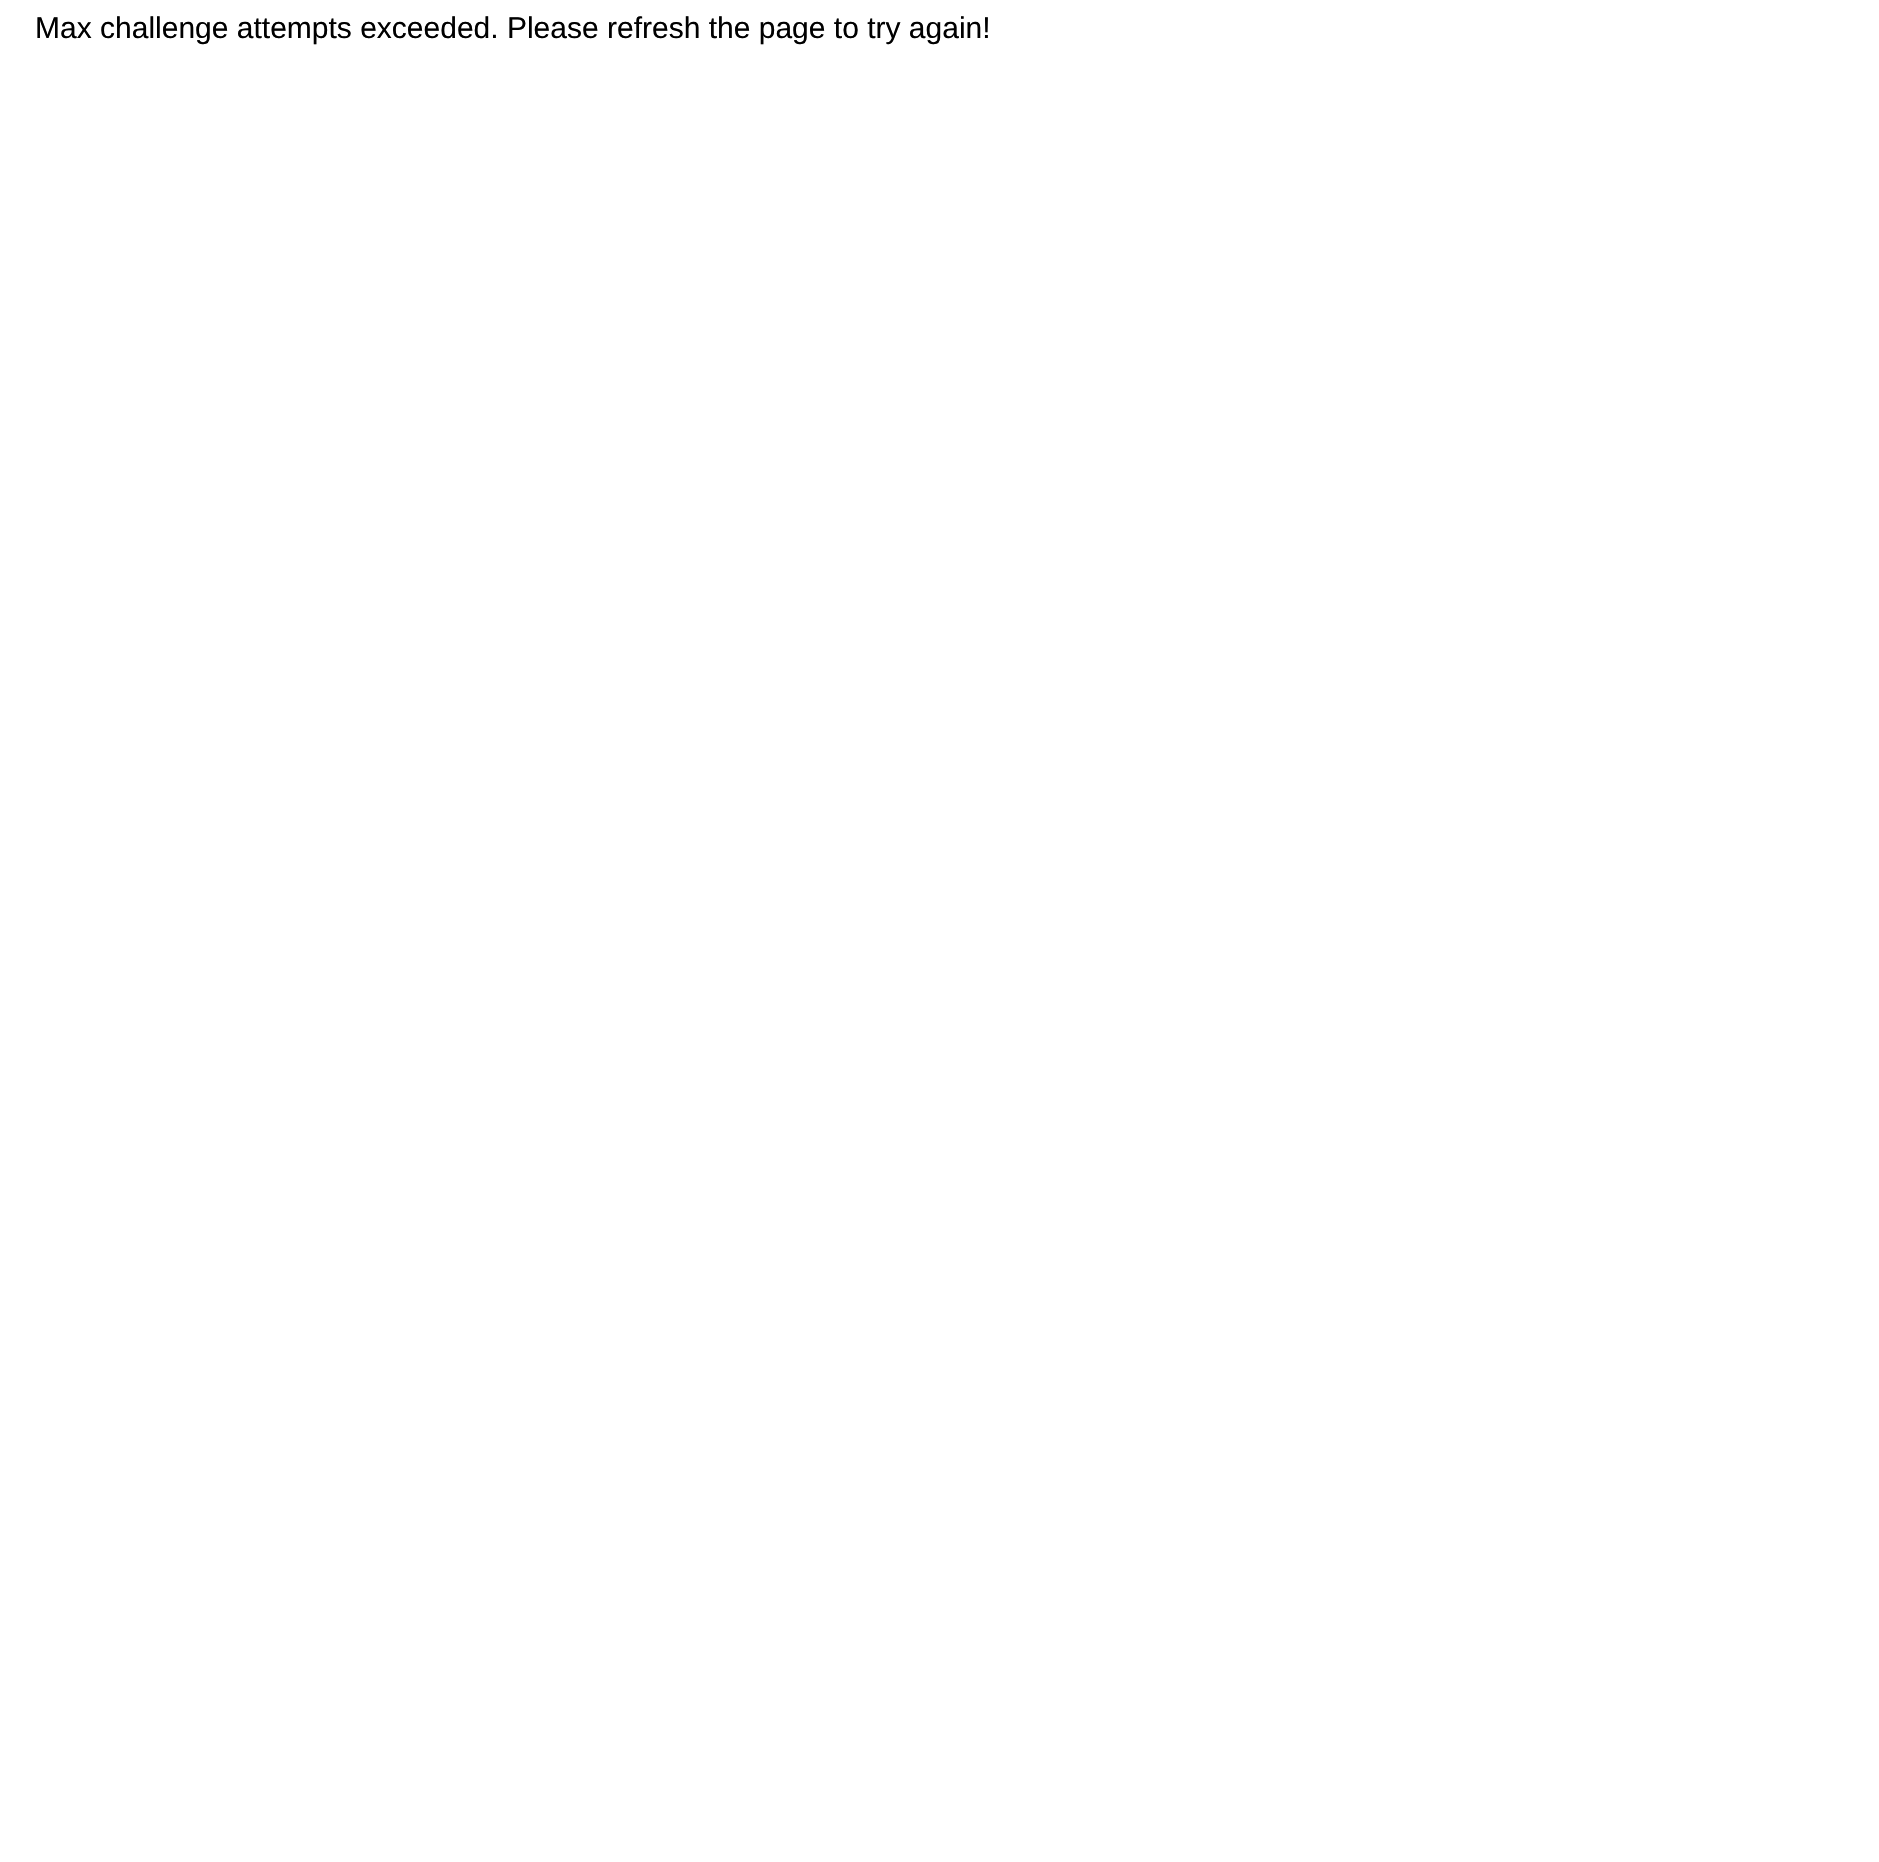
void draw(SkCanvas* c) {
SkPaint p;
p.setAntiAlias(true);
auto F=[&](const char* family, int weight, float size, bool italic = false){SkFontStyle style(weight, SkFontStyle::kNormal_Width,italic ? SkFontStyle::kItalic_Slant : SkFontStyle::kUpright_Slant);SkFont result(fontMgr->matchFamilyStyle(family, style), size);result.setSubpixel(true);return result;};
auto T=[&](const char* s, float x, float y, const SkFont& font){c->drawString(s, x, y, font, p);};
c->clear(0xffffffff);
auto f1 = F("Liberation Sans",400,30);
p.setColor(0xff000000);
T("Max challenge attempts exceeded. Please refresh the page to try again!",35,38,f1);
}
